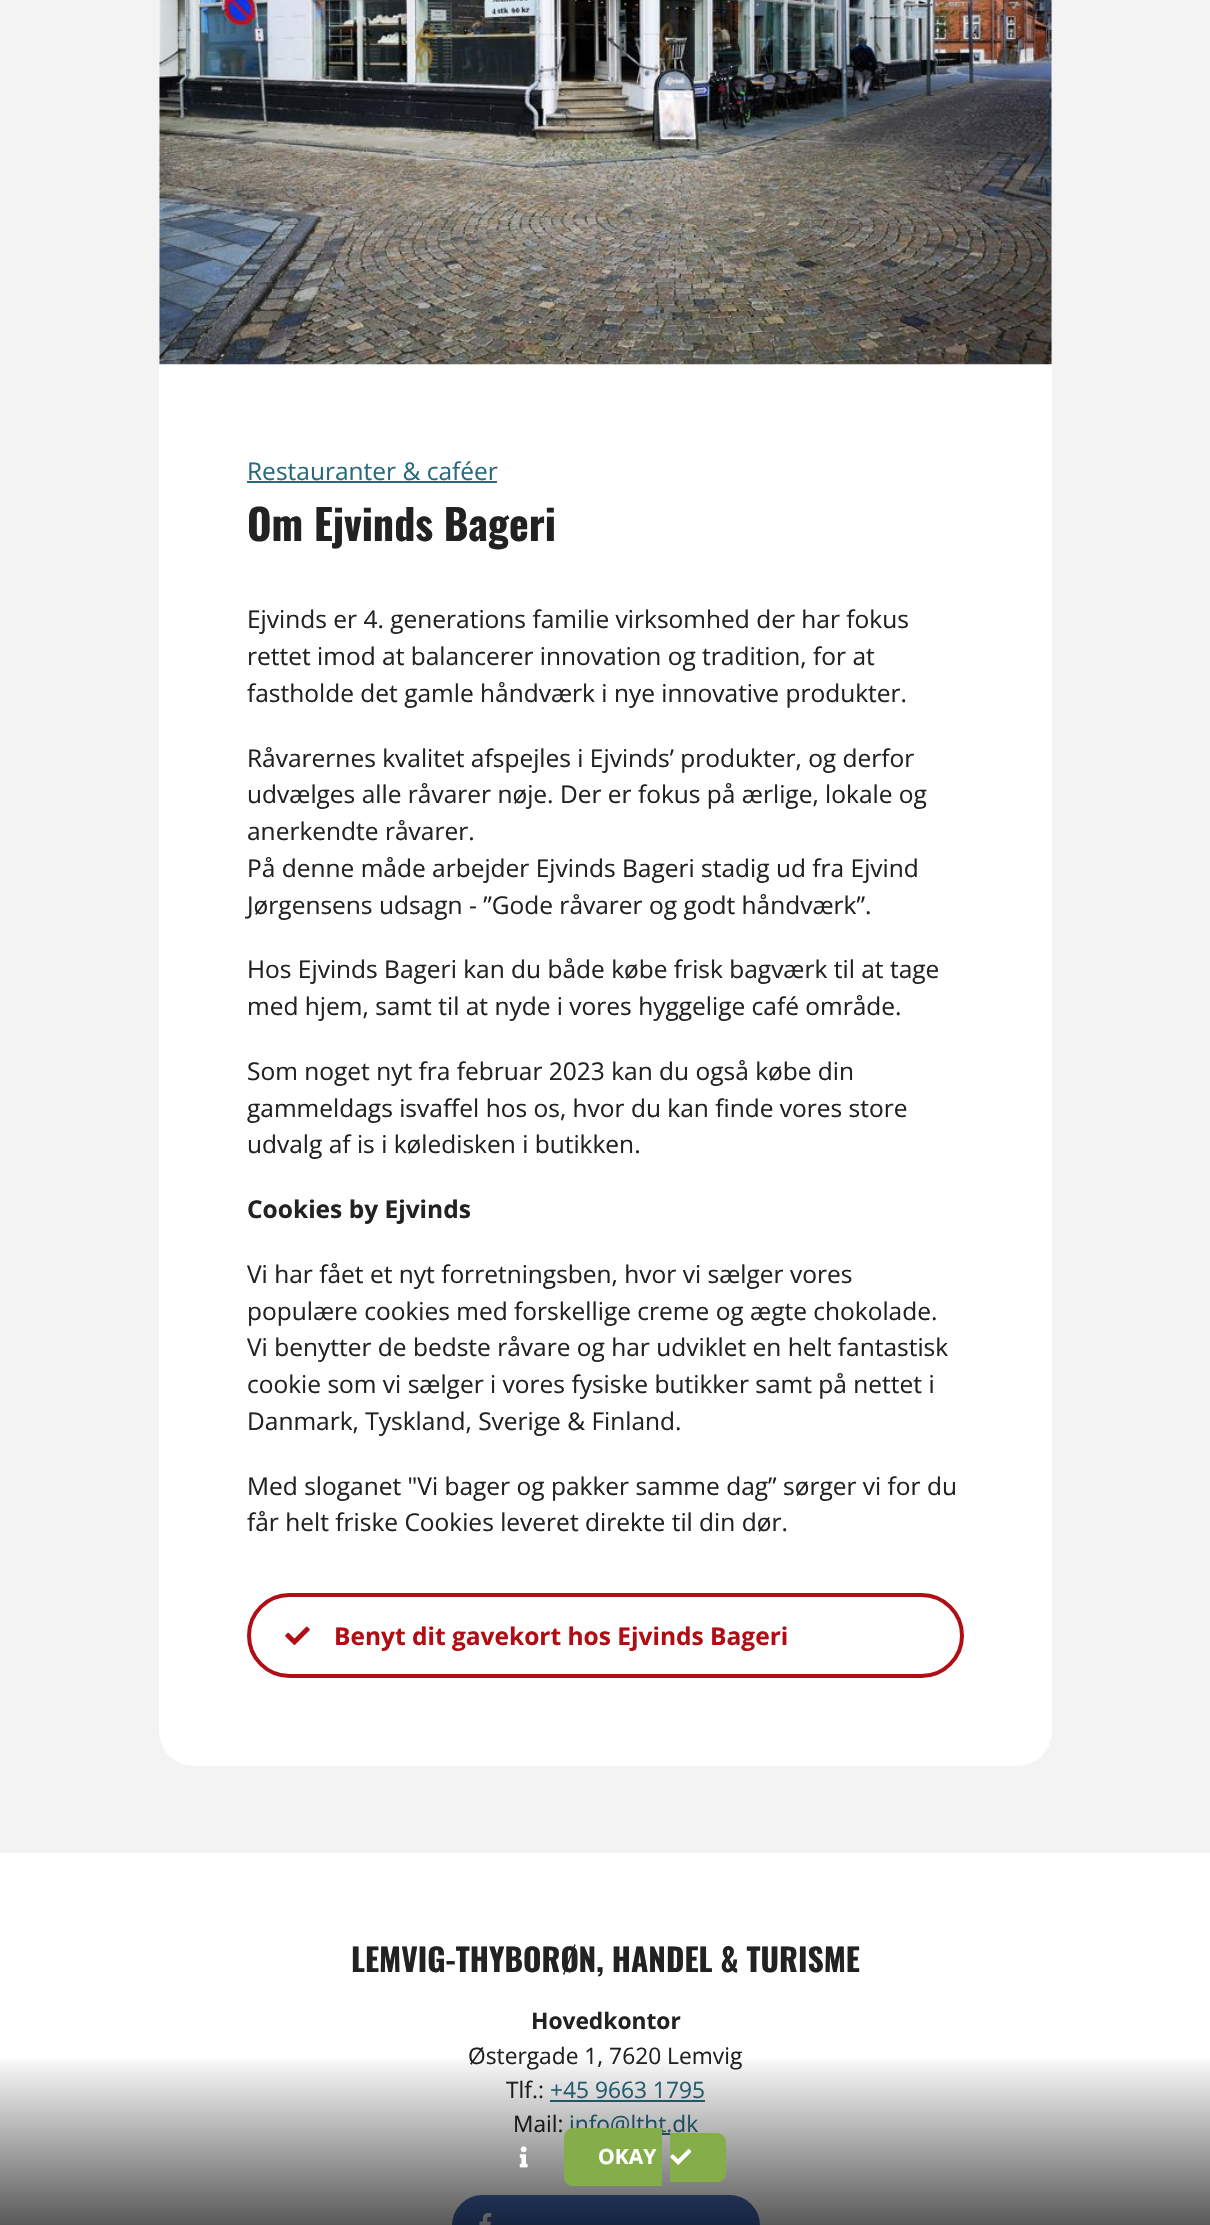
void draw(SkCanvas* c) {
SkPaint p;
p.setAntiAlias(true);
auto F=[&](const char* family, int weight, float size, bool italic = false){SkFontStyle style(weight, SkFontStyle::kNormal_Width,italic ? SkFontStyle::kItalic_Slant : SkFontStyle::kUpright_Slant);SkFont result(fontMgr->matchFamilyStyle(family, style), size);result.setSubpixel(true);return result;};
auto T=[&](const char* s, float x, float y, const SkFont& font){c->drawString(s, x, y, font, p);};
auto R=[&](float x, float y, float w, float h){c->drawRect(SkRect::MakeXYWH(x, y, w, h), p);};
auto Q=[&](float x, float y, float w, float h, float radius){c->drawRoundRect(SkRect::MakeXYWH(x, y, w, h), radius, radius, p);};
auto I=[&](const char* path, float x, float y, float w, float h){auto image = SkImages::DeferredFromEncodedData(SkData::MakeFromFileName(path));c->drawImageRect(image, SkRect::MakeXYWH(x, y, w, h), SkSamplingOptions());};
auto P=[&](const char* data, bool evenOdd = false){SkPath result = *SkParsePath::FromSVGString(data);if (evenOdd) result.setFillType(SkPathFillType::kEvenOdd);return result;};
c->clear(0xfff3f3f3);
p.setColor(0xffffffff);
Q(159,-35,893,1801,35);
I("1.png",159,0,893,365);
auto f1 = F("Open Sans",400,24.5);
p.setColor(0xff286a7c);
T("Restauranter & caféer",247,480,f1);
R(247,481,250,2);
auto f2 = F("Oswald",700,42);
p.setColor(0xff222222);
T("Om Ejvinds Bageri",247,541,f2);
T("Ejvinds er 4. generations familie virksomhed der har fokus",247,628,f1);
T("rettet imod at balancerer innovation og tradition, for at",247,665,f1);
T("fastholde det gamle håndværk i nye innovative produkter.",247,702,f1);
T("Råvarernes kvalitet afspejles i Ejvinds’ produkter, og derfor",247,767,f1);
T("udvælges alle råvarer nøje. Der er fokus på ærlige, lokale og",247,803,f1);
T("anerkendte råvarer.",247,840,f1);
T("På denne måde arbejder Ejvinds Bageri stadig ud fra Ejvind",247,877,f1);
T("Jørgensens udsagn - ”Gode råvarer og godt håndværk”.",247,914,f1);
T("Hos Ejvinds Bageri kan du både købe frisk bagværk til at tage",247,978,f1);
T("med hjem, samt til at nyde i vores hyggelige café område.",247,1015,f1);
T("Som noget nyt fra februar 2023 kan du også købe din",247,1080,f1);
T("gammeldags isvaffel hos os, hvor du kan finde vores store",247,1117,f1);
T("udvalg af is i køledisken i butikken.",247,1153,f1);
auto f3 = F("Open Sans",700,24.5);
T("Cookies by Ejvinds",247,1218,f3);
T("Vi har fået et nyt forretningsben, hvor vi sælger vores",247,1283,f1);
T("populære cookies med forskellige creme og ægte chokolade.",247,1320,f1);
T("Vi benytter de bedste råvare og har udviklet en helt fantastisk",247,1356,f1);
T("cookie som vi sælger i vores fysiske butikker samt på nettet i",247,1393,f1);
T("Danmark, Tyskland, Sverige & Finland.",247,1430,f1);
T("Med sloganet \"Vi bager og pakker samme dag” sørger vi for du",247,1495,f1);
T("får helt friske Cookies leveret direkte til din dør.",247,1531,f1);
p.setStroke(true);
p.setStrokeWidth(4);
p.setColor(0xffb00e14);
c->drawRoundRect(SkRect::MakeXYWH(249,1595,713,81),40.5,40.5,p);
I("2.png",285,1626,25,19);
p.setStroke(false);
T("Benyt dit gavekort hos Ejvinds Bageri",334,1645,f3);
p.setColor(0xffffffff);
R(0,1853,1210,372);
auto f4 = F("Oswald",700,31.5);
p.setColor(0xff222222);
T("LEMVIG-THYBORØN, HANDEL & TURISME",351,1972,f4);
auto f5 = F("Open Sans",700,22.75);
T("Hovedkontor",531,2029,f5);
auto f6 = F("Open Sans",400,22.75);
T("Østergade 1, 7620 Lemvig",468,2064,f6);
T("Tlf.:",506,2098,f6);
p.setColor(0xff286a7c);
T("+45 9663 1795",550,2098,f6);
R(550,2100,155,2);
p.setColor(0xff222222);
T("Mail:",513,2132,f6);
p.setColor(0xff286a7c);
R(662,2133,8,2);
T("info@ltht.dk",569,2132,f6);
p.setColor(0xff4267b2);
Q(452,2195,308,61,30.5);
I("3.png",479,2213,13,12);
{
const SkColor colors[] = {0x00000000,0xa6000000};
const float stops[] = {0,1};
const SkPoint ends[] = {{606,2053}, {606,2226}};
p.setShader(SkGradientShader::MakeLinear(ends, colors, stops, 2, SkTileMode::kClamp));
p.setAlpha(255);
}
R(0,2059,1210,166);
I("4.png",519,2146,9,22);
p.setShader(nullptr);
p.setColor(0xff85ae4a);
c->drawPath(P("M573 2128h89v58h-89c-5 0-9-4-9-9v-40c0-5 4-9 9-9z"),p);
c->drawPath(P("M670 2133h47c5 0 9 4 9 9v31c0 5-4 9-9 9h-47z"),p);
auto f7 = F("Open Sans",700,21);
p.setColor(0xffffffff);
T("OKAY",598,2164,f7);
I("5.png",670,2149,22,16);
}
